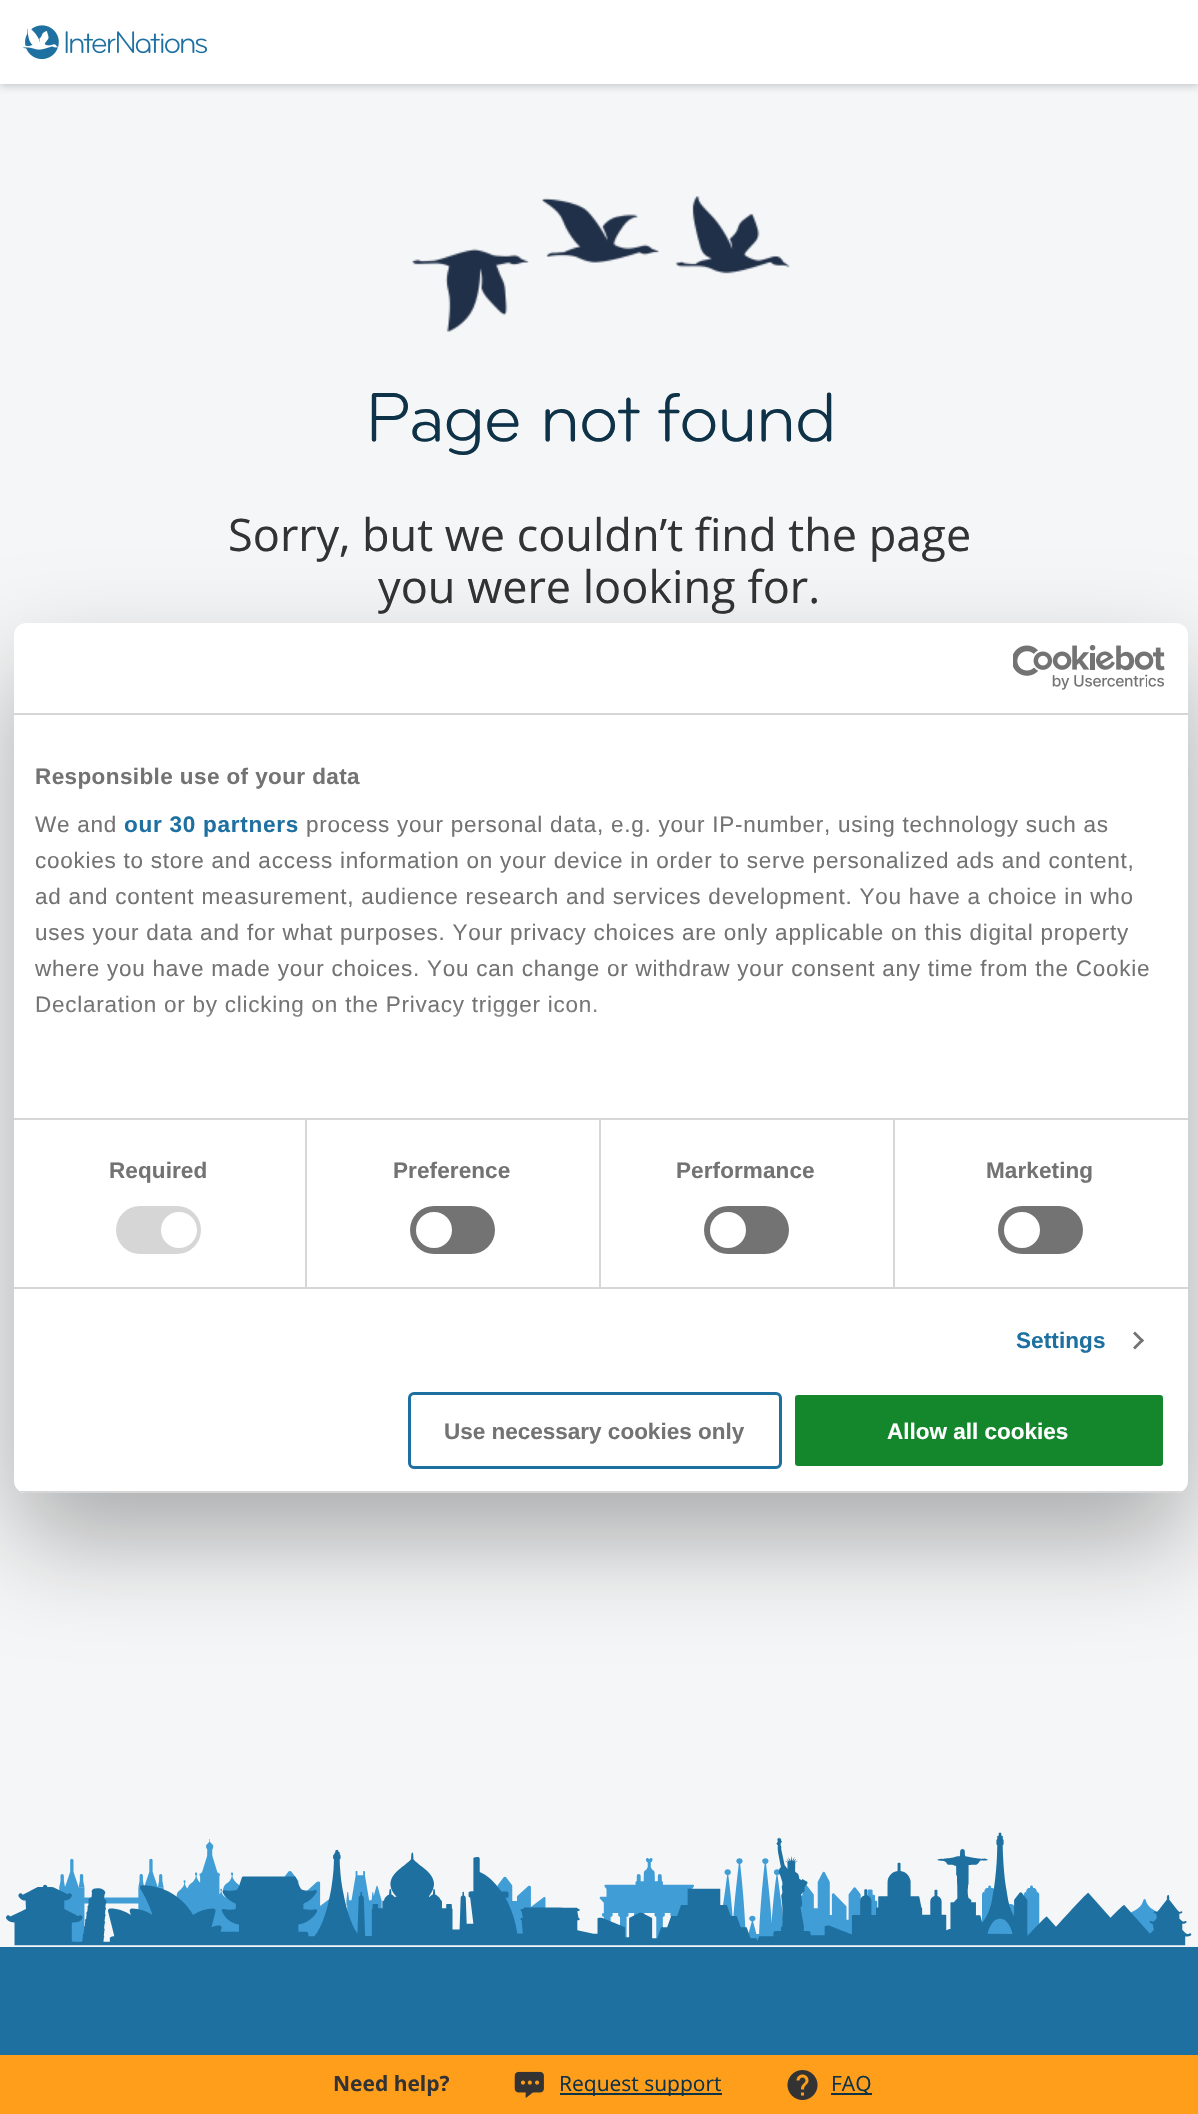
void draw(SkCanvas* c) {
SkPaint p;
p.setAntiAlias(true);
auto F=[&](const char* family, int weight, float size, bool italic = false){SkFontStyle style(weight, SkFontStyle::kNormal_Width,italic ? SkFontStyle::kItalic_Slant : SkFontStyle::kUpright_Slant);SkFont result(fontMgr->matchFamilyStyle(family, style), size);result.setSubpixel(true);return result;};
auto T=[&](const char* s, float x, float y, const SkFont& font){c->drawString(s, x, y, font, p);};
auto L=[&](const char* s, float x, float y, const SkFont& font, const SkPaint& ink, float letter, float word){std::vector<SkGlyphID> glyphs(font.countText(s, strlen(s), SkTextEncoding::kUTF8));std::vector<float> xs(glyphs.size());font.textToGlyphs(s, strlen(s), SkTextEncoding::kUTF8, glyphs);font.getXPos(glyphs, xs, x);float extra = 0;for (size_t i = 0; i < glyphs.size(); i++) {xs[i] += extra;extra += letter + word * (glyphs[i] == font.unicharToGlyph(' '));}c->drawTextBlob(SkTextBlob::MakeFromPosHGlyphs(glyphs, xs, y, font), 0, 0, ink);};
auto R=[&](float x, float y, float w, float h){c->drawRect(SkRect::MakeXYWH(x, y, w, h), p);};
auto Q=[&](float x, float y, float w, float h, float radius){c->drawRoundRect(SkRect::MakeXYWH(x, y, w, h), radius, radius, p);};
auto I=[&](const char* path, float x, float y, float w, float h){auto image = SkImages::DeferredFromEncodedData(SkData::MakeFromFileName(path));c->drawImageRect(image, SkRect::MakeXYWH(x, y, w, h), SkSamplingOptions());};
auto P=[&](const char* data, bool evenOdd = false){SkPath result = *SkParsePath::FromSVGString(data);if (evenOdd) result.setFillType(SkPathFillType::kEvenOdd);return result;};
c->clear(0xfff5f6f7);
p.setColor(0x40333333);
p.setMaskFilter(SkMaskFilter::MakeBlur(kNormal_SkBlurStyle, 4));
c->drawRect(SkRect::MakeXYWH(0,2,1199,84),p);
p.setMaskFilter(nullptr);
p.setColor(0xffffffff);
R(0,0,1198,84);
I("1.png",23,25,184,35);
I("2.png",412,196,378,136);
auto f1 = F("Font",400,72);
p.setColor(0xff0e3247);
L("Page not found",365,441,f1,p,-2,0);
auto f2 = F("Open Sans",400,45);
p.setColor(0xff333333);
T("Sorry, but we couldn’t find the page",228,551,f2);
T("you were looking for.",378,603,f2);
I("3.png",6,1832,1186,114);
p.setColor(0xff1e70a1);
R(0,1947,1198,108);
p.setColor(0xffff9e1b);
R(0,2055,1198,59);
auto f3 = F("Open Sans",700,21);
p.setColor(0xff333333);
T("Need help?",333,2091,f3);
I("4.png",514,2071,30,27);
p.setColor(0xff0e3247);
R(560,2093,162,2);
auto f4 = F("Open Sans",400,21);
T("Request support",559,2091,f4);
I("5.png",787,2070,31,30);
R(831,2093,41,2);
T("FAQ",831,2091,f4);
p.setColor(0x4d000000);
p.setMaskFilter(SkMaskFilter::MakeBlur(kNormal_SkBlurStyle, 51));
c->drawRoundRect(SkRect::MakeXYWH(14,671,1174,870),12,12,p);
p.setMaskFilter(nullptr);
p.setColor(0xffffffff);
Q(14,623,1174,870,12);
p.setColor(0xffd6d6d6);
R(14,713,1174,2);
I("6.png",1013,645,152,45);
R(305,1119,2,168);
R(599,1119,2,168);
R(893,1119,2,168);
R(14,1118,1174,2);
auto f5 = F("Liberation Sans",700,22.5);
p.setColor(0xff737373);
L("Responsible use of your data",35,784,f5,p,.4,0);
auto f6 = F("Liberation Sans",400,22.5);
L("We and",35,832,f6,p,.75,0);
p.setColor(0xff1e70a1);
L("our 30 partners",124,832,f5,p,.75,0);
p.setColor(0xff737373);
L("process your personal data, e.g. your IP-number, using technology such as",306,832,f6,p,.75,0);
L("cookies to store and access information on your device in order to serve personalized ads and content,",35,868,f6,p,.75,0);
L("ad and content measurement, audience research and services development. You have a choice in who",35,904,f6,p,.75,0);
L("uses your data and for what purposes. Your privacy choices are only applicable on this digital property",35,940,f6,p,.75,0);
L("where you have made your choices. You can change or withdraw your consent any time from the Cookie",35,976,f6,p,.75,0);
L("Declaration or by clicking on the Privacy trigger icon.",35,1012,f6,p,.75,0);
{
const SkColor colors[] = {0xffffffff,0xccffffff,0x00ffffff};
const float stops[] = {0,.5,1};
const SkPoint ends[] = {{590,1117}, {590,1005}};
p.setShader(SkGradientShader::MakeLinear(ends, colors, stops, 3, SkTileMode::kClamp));
p.setAlpha(255);
}
R(36,1007,560,10);
p.setShader(nullptr);
p.setColor(0xffd6d6d6);
R(14,1287,1174,2);
p.setColor(0xff737373);
L("Required",109,1178,f5,p,.1,0);
p.setColor(0xffd6d6d6);
Q(116,1206,85,48,24);
p.setColor(0xffffffff);
c->drawCircle(179,1230,18,p);
p.setColor(0xff737373);
L("Preference",393,1178,f5,p,.1,0);
Q(410,1206,85,48,24);
p.setColor(0xffffffff);
c->drawCircle(434,1230,18,p);
p.setColor(0xff737373);
L("Performance",676,1178,f5,p,.1,0);
Q(704,1206,85,48,24);
p.setColor(0xffffffff);
c->drawCircle(728,1230,18,p);
p.setColor(0xff737373);
L("Marketing",986,1178,f5,p,.1,0);
Q(998,1206,85,48,24);
p.setColor(0xffffffff);
c->drawCircle(1022,1230,18,p);
p.setColor(0xff1e70a1);
L("Settings",1016,1348,f5,p,.1,0);
p.setColor(0xff737373);
c->drawPath(P("M1135 1331.5l9 9l-2 2l-9-9z"),p);
c->drawPath(P("M1142 1338.5l2 2l-9 9l-2-2z"),p);
c->save();
c->clipPath(P("M26 623h1150c6.5 0 12 5.5 12 12v846c0 6.5-5.5 12-12 12h-1150c-6.5 0-12-5.5-12-12v-846c0-6.5 5.5-12 12-12z"),true);
p.setColor(0xffd6d6d6);
R(14,1491,1174,2);
c->restore();
p.setStroke(true);
p.setStrokeWidth(3);
p.setColor(0xff1e70a1);
c->drawRoundRect(SkRect::MakeXYWH(409.5,1393.5,371,74),4.5,4.5,p);
p.setStroke(false);
p.setColor(0xff737373);
T("Use necessary cookies only",444,1439,f5);
p.setColor(0xff14872c);
c->drawRoundRect(SkRect::MakeXYWH(793.5,1393.5,371,74),4.5,4.5,p);
p.setStroke(true);
p.setColor(0xffffffff);
c->drawRoundRect(SkRect::MakeXYWH(793.5,1393.5,371,74),4.5,4.5,p);
p.setStroke(false);
T("Allow all cookies",887,1439,f5);
}
